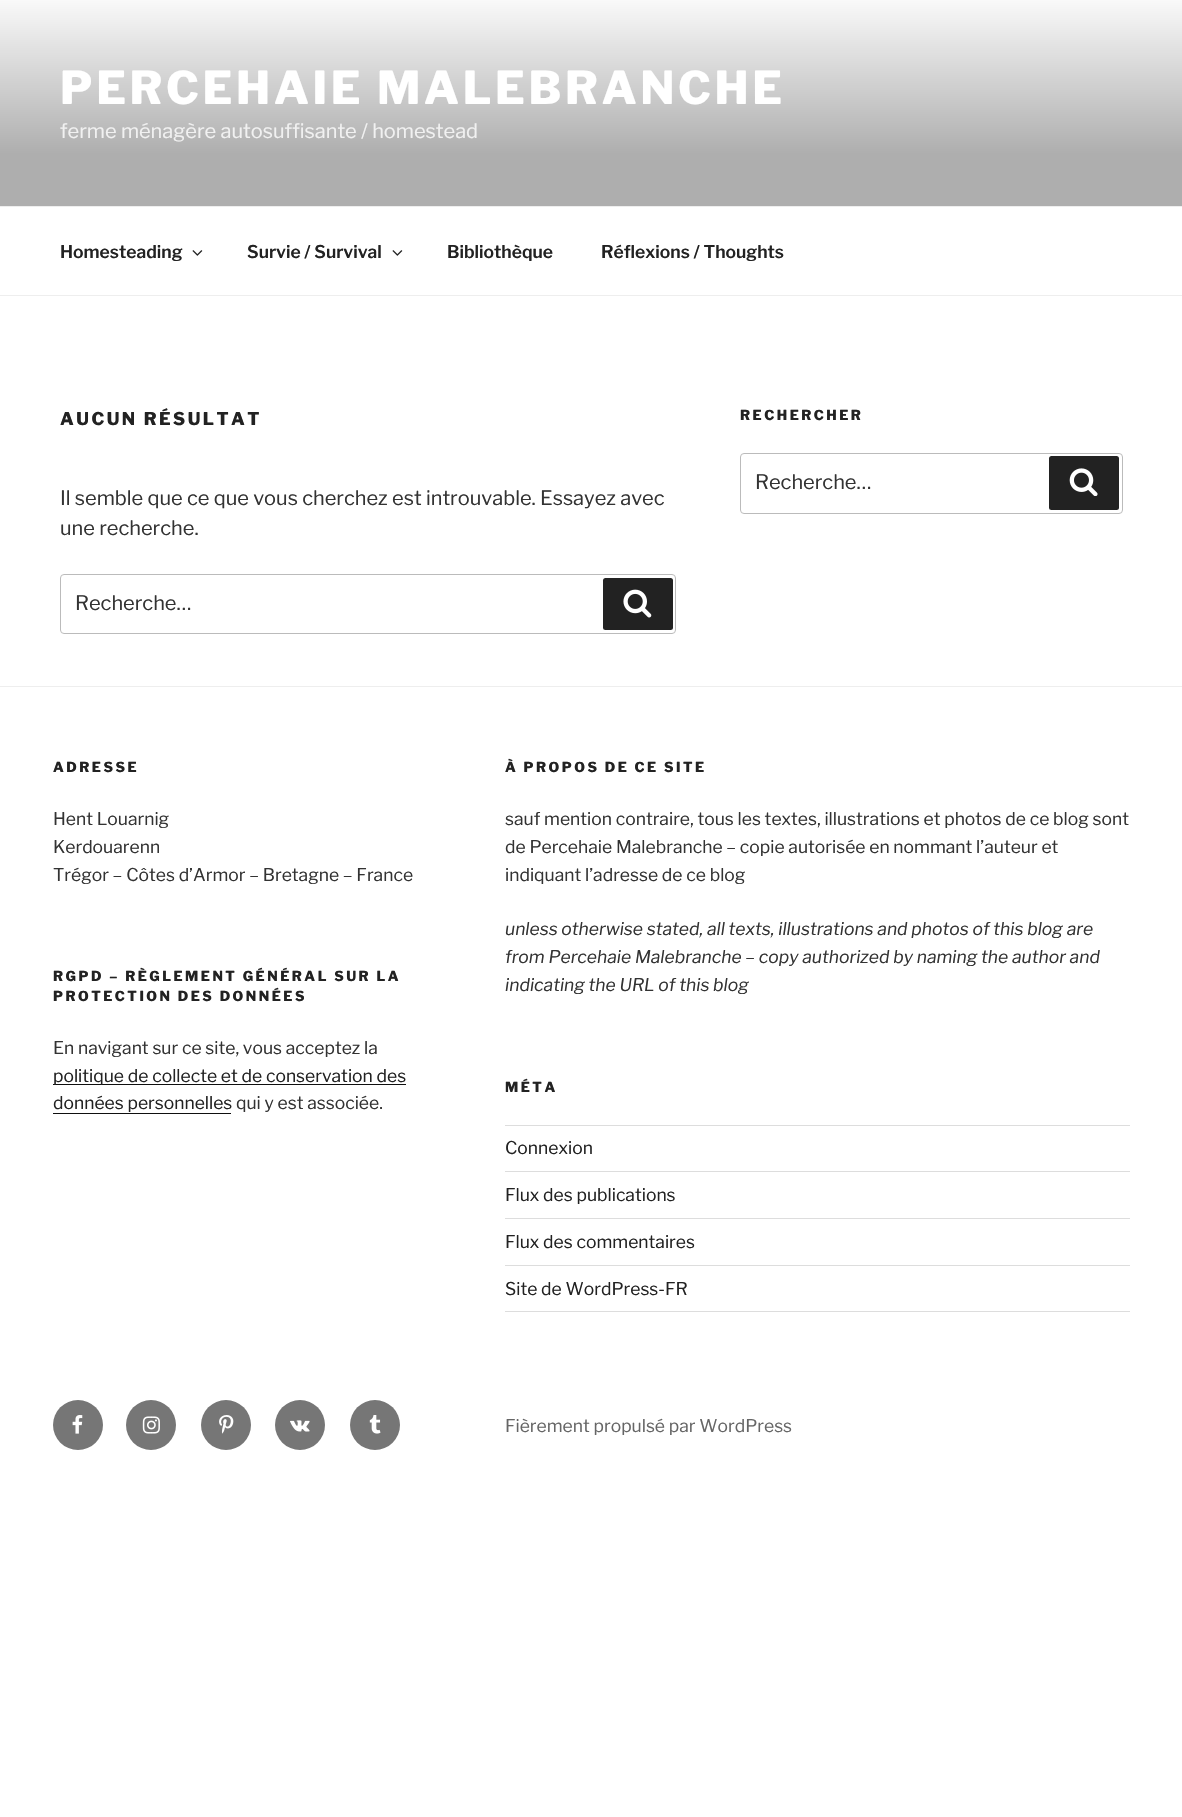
void draw(SkCanvas* c) {
SkPaint p;
p.setAntiAlias(true);
auto F=[&](const char* family, int weight, float size, bool italic = false){SkFontStyle style(weight, SkFontStyle::kNormal_Width,italic ? SkFontStyle::kItalic_Slant : SkFontStyle::kUpright_Slant);SkFont result(fontMgr->matchFamilyStyle(family, style), size);result.setSubpixel(true);return result;};
auto T=[&](const char* s, float x, float y, const SkFont& font){c->drawString(s, x, y, font, p);};
auto L=[&](const char* s, float x, float y, const SkFont& font, const SkPaint& ink, float letter, float word){std::vector<SkGlyphID> glyphs(font.countText(s, strlen(s), SkTextEncoding::kUTF8));std::vector<float> xs(glyphs.size());font.textToGlyphs(s, strlen(s), SkTextEncoding::kUTF8, glyphs);font.getXPos(glyphs, xs, x);float extra = 0;for (size_t i = 0; i < glyphs.size(); i++) {xs[i] += extra;extra += letter + word * (glyphs[i] == font.unicharToGlyph(' '));}c->drawTextBlob(SkTextBlob::MakeFromPosHGlyphs(glyphs, xs, y, font), 0, 0, ink);};
auto R=[&](float x, float y, float w, float h){c->drawRect(SkRect::MakeXYWH(x, y, w, h), p);};
auto Q=[&](float x, float y, float w, float h, float radius){c->drawRoundRect(SkRect::MakeXYWH(x, y, w, h), radius, radius, p);};
auto I=[&](const char* path, float x, float y, float w, float h){auto image = SkImages::DeferredFromEncodedData(SkData::MakeFromFileName(path));c->drawImageRect(image, SkRect::MakeXYWH(x, y, w, h), SkSamplingOptions());};
c->clear(0xffffffff);
{
const SkColor colors[] = {0xfff9f9f9,0xffaeaeae,0xffaeaeae};
const float stops[] = {0,.75,1};
const SkPoint ends[] = {{591,0}, {591,206}};
p.setShader(SkGradientShader::MakeLinear(ends, colors, stops, 3, SkTileMode::kClamp));
p.setAlpha(255);
}
R(0,0,1182,206);
auto f1 = F("Libre Franklin",100,45);
p.setShader(nullptr);
p.setColor(0xffffffff);
L("PERCEHAIE MALEBRANCHE",60,104,f1,p,3.6,0);
auto f2 = F("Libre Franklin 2",100,20);
p.setColor(0xfff1f1f1);
T("ferme ménagère autosuffisante / homestead",60,138,f2);
p.setColor(0xffeeeeee);
R(0,206,1182,1);
R(0,295,1182,1);
auto f3 = F("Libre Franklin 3",100,17.5);
p.setColor(0xff222222);
T("Homesteading",60,258,f3);
I("1.png",192,250,11,6);
T("Survie / Survival",247,258,f3);
I("1.png",392,250,11,6);
T("Bibliothèque",447,258,f3);
T("Réflexions / Thoughts",601,258,f3);
auto f4 = F("Libre Franklin",100,17.5);
L("AUCUN RÉSULTAT",60,425,f4,p,2.5,0);
p.setColor(0xff333333);
T("Il semble que ce que vous cherchez est introuvable. Essayez avec",60,505,f2);
T("une recherche.",60,535,f2);
p.setStroke(true);
p.setStrokeWidth(1);
p.setColor(0xffbbbbbb);
c->drawRoundRect(SkRect::MakeXYWH(60.5,574.5,615,59),3.5,3.5,p);
p.setStroke(false);
p.setColor(0xff333333);
T("Recherche…",75,610,f2);
p.setColor(0xff222222);
Q(603,578,70,52,2.5);
I("2.png",623,589,29,29);
auto f5 = F("Libre Franklin",100,13.75);
L("RECHERCHER",740,420,f5,p,2.5,0);
p.setStroke(true);
p.setColor(0xffbbbbbb);
c->drawRoundRect(SkRect::MakeXYWH(740.5,453.5,382,60),3.5,3.5,p);
p.setStroke(false);
p.setColor(0xff333333);
T("Recherche…",755,489,f2);
p.setColor(0xff222222);
Q(1049,456,70,54,2.5);
I("3.png",1069,468,29,28);
p.setColor(0xffeeeeee);
R(0,686,1182,1);
p.setColor(0xff222222);
L("ADRESSE",53,772,f5,p,2.5,0);
auto f6 = F("Libre Franklin 2",100,17.5);
p.setColor(0xff333333);
T("Hent Louarnig",53,825,f6);
T("Kerdouarenn",53,853,f6);
T("Trégor – Côtes d’Armor – Bretagne – France",53,881,f6);
p.setColor(0xff222222);
L("RGPD – RÈGLEMENT GÉNÉRAL SUR LA",53,981,f5,p,2.5,0);
L("PROTECTION DES DONNÉES",53,1001,f5,p,2.5,0);
p.setColor(0xff333333);
T("En navigant sur ce site, vous acceptez la",53,1054,f6);
p.setColor(0xff0f0f0f);
R(53,1084,353,1);
p.setColor(0xff222222);
T("politique de collecte et de conservation des",53,1082,f6);
T("données personnelles",53,1109,f6);
p.setColor(0xff0f0f0f);
R(53,1113,178,1);
p.setColor(0xff333333);
T("qui y est associée.",236,1109,f6);
p.setColor(0xff222222);
L("À PROPOS DE CE SITE",505,772,f5,p,2.5,0);
p.setColor(0xff333333);
T("sauf mention contraire, tous les textes, illustrations et photos de ce blog sont",505,825,f6);
T("de Percehaie Malebranche – copie autorisée en nommant l’auteur et",505,853,f6);
T("indiquant l’adresse de ce blog",505,881,f6);
auto f7 = F("Libre Franklin",100,17.5,true);
T("unless otherwise stated, all texts, illustrations and photos of this blog are",505,935,f7);
T("from Percehaie Malebranche – copy authorized by naming the author and",505,963,f7);
T("indicating the URL of this blog",505,991,f7);
p.setColor(0xff222222);
L("MÉTA",505,1092,f5,p,2.5,0);
p.setColor(0xffdddddd);
R(505,1125,625,1);
R(505,1171,625,1);
p.setColor(0xff222222);
T("Connexion",505,1154,f6);
p.setColor(0xffdddddd);
R(505,1218,625,1);
p.setColor(0xff222222);
T("Flux des publications",505,1201,f6);
p.setColor(0xffdddddd);
R(505,1265,625,1);
p.setColor(0xff222222);
T("Flux des commentaires",505,1248,f6);
p.setColor(0xffdddddd);
R(505,1311,625,1);
p.setColor(0xff222222);
T("Site de WordPress-FR",505,1295,f6);
p.setColor(0xff767676);
c->drawCircle(78,1425,25,p);
I("4.png",72,1415,11,19);
c->drawCircle(151,1425,25,p);
I("5.png",142,1416,18,18);
c->drawCircle(226,1425,25,p);
I("6.png",219,1415,15,19);
c->drawCircle(300,1425,25,p);
I("7.png",290,1420,20,12);
c->drawCircle(375,1425,25,p);
I("8.png",369,1415,12,19);
p.setColor(0xff666666);
T("Fièrement propulsé par WordPress",505,1432,f6);
}
